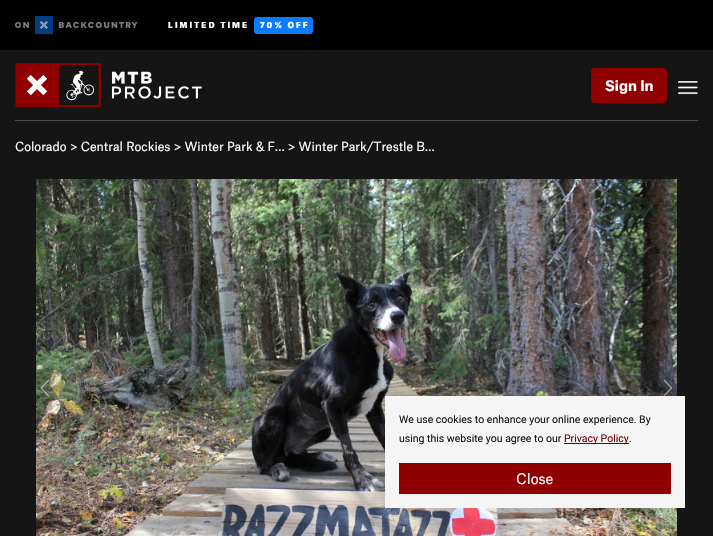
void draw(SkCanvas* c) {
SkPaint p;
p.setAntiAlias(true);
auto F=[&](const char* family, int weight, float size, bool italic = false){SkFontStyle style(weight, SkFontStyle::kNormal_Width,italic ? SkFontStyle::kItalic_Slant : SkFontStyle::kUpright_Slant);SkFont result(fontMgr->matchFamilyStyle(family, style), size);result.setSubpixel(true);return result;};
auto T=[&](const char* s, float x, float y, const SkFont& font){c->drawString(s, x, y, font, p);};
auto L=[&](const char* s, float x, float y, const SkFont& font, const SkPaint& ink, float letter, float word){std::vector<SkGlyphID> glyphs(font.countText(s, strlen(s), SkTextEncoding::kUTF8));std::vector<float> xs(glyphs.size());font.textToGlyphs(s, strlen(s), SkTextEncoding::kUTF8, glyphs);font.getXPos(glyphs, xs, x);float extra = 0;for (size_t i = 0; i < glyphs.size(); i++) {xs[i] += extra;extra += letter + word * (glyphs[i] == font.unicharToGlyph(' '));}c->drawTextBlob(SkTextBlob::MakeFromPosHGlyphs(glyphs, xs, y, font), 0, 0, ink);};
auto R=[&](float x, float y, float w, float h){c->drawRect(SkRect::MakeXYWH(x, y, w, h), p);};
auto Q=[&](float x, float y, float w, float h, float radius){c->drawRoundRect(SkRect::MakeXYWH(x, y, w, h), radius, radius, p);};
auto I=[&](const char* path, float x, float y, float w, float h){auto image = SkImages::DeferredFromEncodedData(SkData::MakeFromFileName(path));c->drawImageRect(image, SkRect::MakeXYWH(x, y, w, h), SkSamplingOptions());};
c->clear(0xff151515);
p.setColor(0xff000000);
R(0,0,713,50);
I("1.png",15,16,123,18);
auto f1 = F("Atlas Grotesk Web",900,8);
p.setColor(0xffffffff);
L("LIMITED TIME",168,28,f1,p,2,0);
p.setColor(0xff087bff);
Q(254,17,59,17,3);
p.setColor(0xffffffff);
L("70% OFF",260,28,f1,p,2,0);
I("2.png",15,63,187,44);
p.setColor(0xff900000);
Q(591,68,76,35,4);
auto f2 = F("Atlas Grotesk Web",700,14);
p.setColor(0xffffffff);
T("Sign In",605,91,f2);
I("3.png",678,81,20,13);
p.setColor(0xff4e4d49);
R(15,120,683,1);
auto f3 = F("Atlas Grotesk Web",400,12);
p.setColor(0xffffffff);
T("Colorado > Central Rockies > Winter Park & F… > Winter Park/Trestle B…",15,151,f3);
I("4.png",36,179,641,357);
I("5.png",39,378,12,20);
I("6.png",662,378,11,18);
p.setColor(0x40000000);
p.setMaskFilter(SkMaskFilter::MakeBlur(kNormal_SkBlurStyle, 5));
c->drawRect(SkRect::MakeXYWH(390,396,290,102),p);
p.setMaskFilter(nullptr);
p.setColor(0xfff5f5f5);
R(385,396,300,112);
auto f4 = F("Roboto",400,10.5);
p.setColor(0xff151515);
T("We use cookies to enhance your online experience. By",399,423,f4);
T("using this website you agree to our",399,442,f4);
p.setColor(0xff710100);
R(564,443,65,1);
T("Privacy Policy",564,442,f4);
p.setColor(0xff151515);
T(".",629,442,f4);
p.setColor(0xff900000);
R(399,463,272,31);
auto f5 = F("Atlas Grotesk Web",400,14);
p.setColor(0xffffffff);
T("Close",516,484,f5);
}
